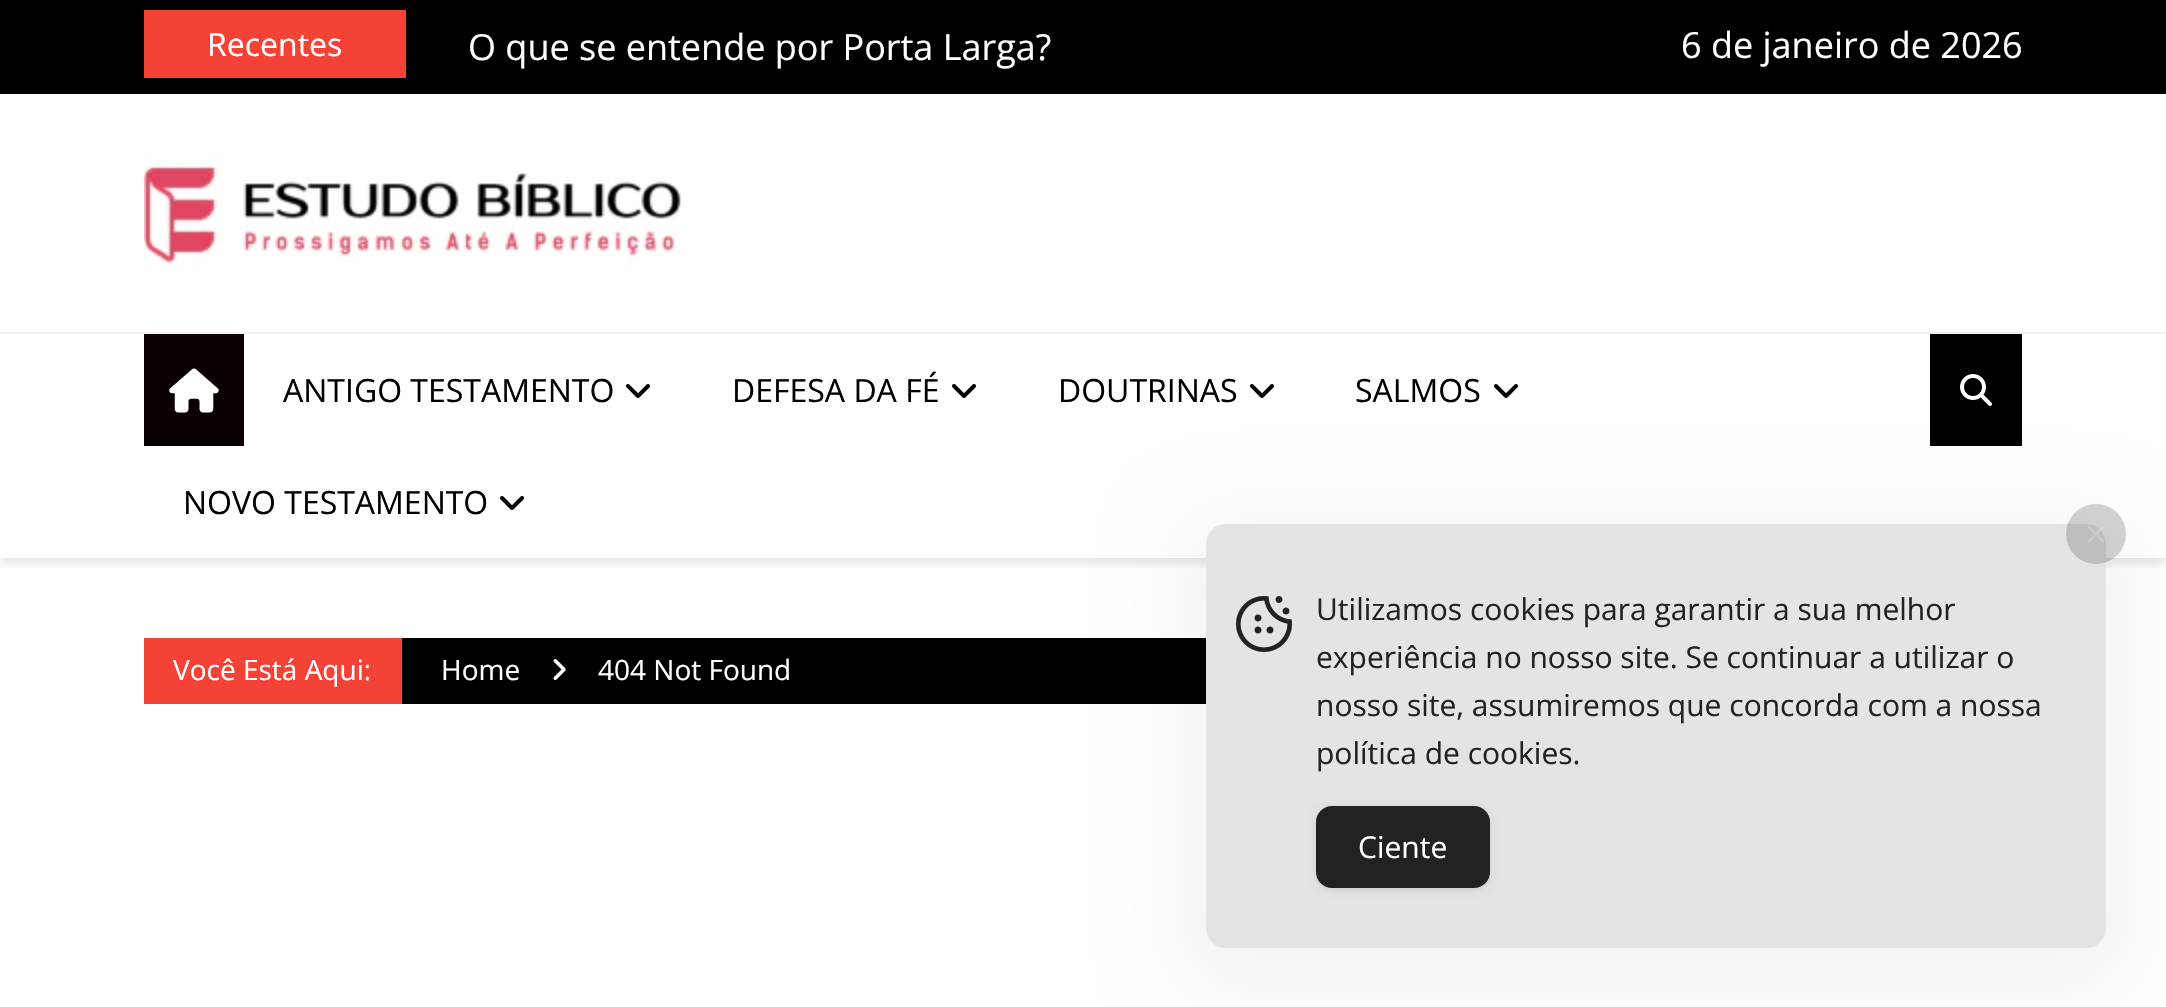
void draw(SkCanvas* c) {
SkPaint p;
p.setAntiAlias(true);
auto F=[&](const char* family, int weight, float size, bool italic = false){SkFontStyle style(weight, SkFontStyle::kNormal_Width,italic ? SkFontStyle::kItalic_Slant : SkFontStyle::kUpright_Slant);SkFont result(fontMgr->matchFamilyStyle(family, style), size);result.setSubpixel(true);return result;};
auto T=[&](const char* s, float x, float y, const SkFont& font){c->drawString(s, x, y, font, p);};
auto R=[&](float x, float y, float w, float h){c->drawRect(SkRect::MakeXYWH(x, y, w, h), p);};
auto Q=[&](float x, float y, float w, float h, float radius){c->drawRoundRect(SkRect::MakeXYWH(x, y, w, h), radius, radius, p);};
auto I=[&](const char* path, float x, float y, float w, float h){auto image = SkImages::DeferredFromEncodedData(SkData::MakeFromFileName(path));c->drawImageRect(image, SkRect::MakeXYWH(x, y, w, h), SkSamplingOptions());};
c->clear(0xffffffff);
p.setColor(0xff000000);
R(0,0,2166,94);
p.setColor(0xfff44336);
R(144,10,262,68);
auto f1 = F("Open Sans",400,32);
p.setColor(0xffffffff);
T("Recentes",207,56,f1);
auto f2 = F("Open Sans",400,36);
T("O que se entende por Porta Larga?",468,60,f2);
T("6 de janeiro de 2026",1681,58,f2);
I("1.png",144,154,537,112);
c->save();
c->clipRect(SkRect::MakeXYWH(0,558,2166,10));
p.setColor(0x1a000000);
p.setMaskFilter(SkMaskFilter::MakeBlur(kNormal_SkBlurStyle, 5));
c->drawRect(SkRect::MakeXYWH(0,338,2166,226),p);
p.setMaskFilter(nullptr);
c->restore();
p.setColor(0xfff2f2f2);
R(0,332,2166,2);
p.setColor(0xff0a0000);
R(144,334,100,112);
I("2.png",169,368,50,45);
p.setColor(0xff000000);
T("ANTIGO TESTAMENTO",283,402,f1);
I("3.png",626,384,24,14);
T("DEFESA DA FÉ",732,402,f1);
I("3.png",952,384,24,14);
T("DOUTRINAS",1058,402,f1);
I("3.png",1250,384,24,14);
T("SALMOS",1355,402,f1);
I("3.png",1494,384,24,14);
T("NOVO TESTAMENTO",183,514,f1);
I("3.png",500,496,24,14);
R(1930,334,92,112);
I("4.png",1960,374,32,32);
R(402,638,804,66);
p.setColor(0xfff44336);
R(144,638,258,66);
auto f3 = F("Open Sans",400,28);
p.setColor(0xffffffff);
T("Você Está Aqui:",173,680,f3);
T("Home",441,680,f3);
I("5.png",553,659,13,21);
T("404 Not Found",598,680,f3);
p.setColor(0x0d000000);
p.setMaskFilter(SkMaskFilter::MakeBlur(kNormal_SkBlurStyle, 40));
c->drawRoundRect(SkRect::MakeXYWH(1186,524,940,464),40,40,p);
p.setMaskFilter(nullptr);
p.setColor(0xffe4e4e4);
Q(1206,524,900,424,20);
p.setColor(0x33222222);
c->drawCircle(2096,534,30,p);
I("6.png",2088,526,16,16);
I("7.png",1236,596,56,56);
auto f4 = F("Open Sans",400,30);
p.setColor(0xff222222);
T("Utilizamos cookies para garantir a sua melhor",1316,620,f4);
T("experiência no nosso site. Se continuar a utilizar o",1316,668,f4);
T("nosso site, assumiremos que concorda com a nossa",1316,716,f4);
T("política de cookies.",1316,764,f4);
p.setColor(0x1a000000);
p.setMaskFilter(SkMaskFilter::MakeBlur(kNormal_SkBlurStyle, 4));
c->drawRoundRect(SkRect::MakeXYWH(1316,808,174,82),16,16,p);
p.setMaskFilter(nullptr);
p.setColor(0xff222222);
c->drawRoundRect(SkRect::MakeXYWH(1317,807,172,80),15,15,p);
p.setStroke(true);
p.setStrokeWidth(2);
c->drawRoundRect(SkRect::MakeXYWH(1317,807,172,80),15,15,p);
p.setStroke(false);
p.setColor(0xffffffff);
T("Ciente",1358,858,f4);
}
